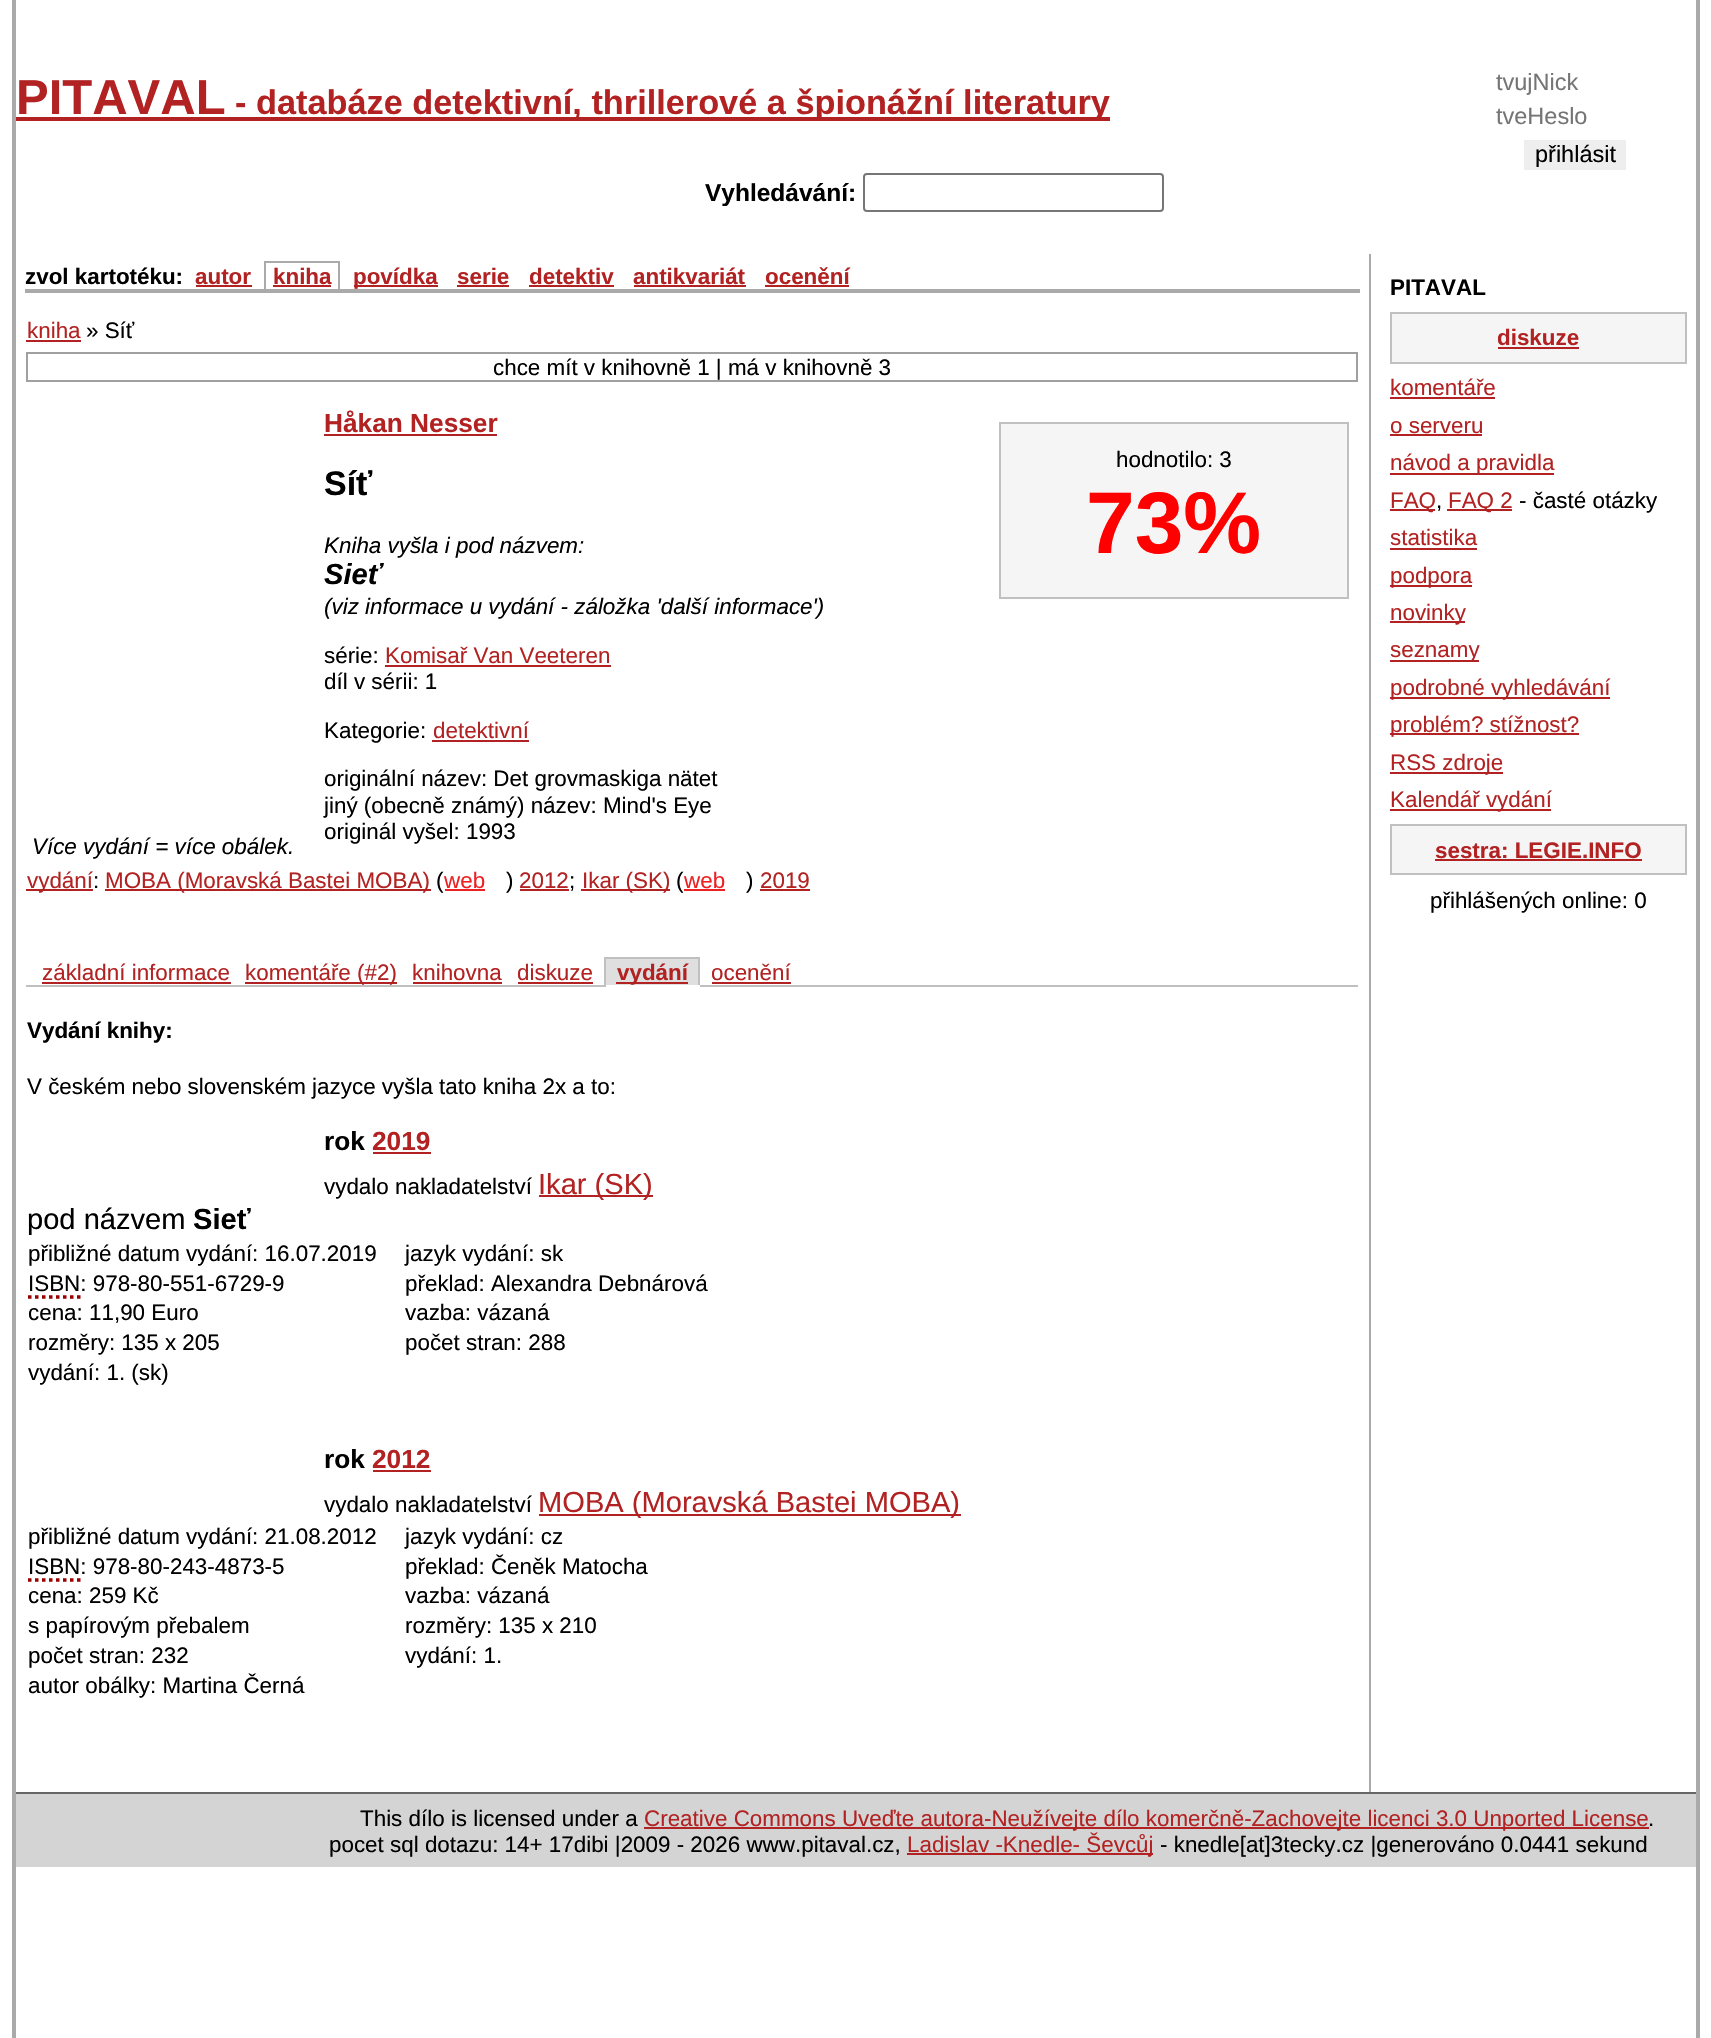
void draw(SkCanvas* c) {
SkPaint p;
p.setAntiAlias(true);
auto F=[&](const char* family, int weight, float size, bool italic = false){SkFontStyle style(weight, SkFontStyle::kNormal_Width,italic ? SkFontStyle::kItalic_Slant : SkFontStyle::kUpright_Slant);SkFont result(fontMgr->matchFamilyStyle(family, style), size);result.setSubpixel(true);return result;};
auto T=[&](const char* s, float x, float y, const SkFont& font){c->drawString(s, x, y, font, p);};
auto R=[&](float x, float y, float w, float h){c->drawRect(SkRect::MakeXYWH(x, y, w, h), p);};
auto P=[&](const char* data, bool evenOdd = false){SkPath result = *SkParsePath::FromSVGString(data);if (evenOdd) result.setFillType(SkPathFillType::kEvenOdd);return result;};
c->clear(0xffffffff);
p.setColor(0xffaaaaaa);
R(1696,0,4,2038);
R(12,0,4,2038);
auto f1 = F("Liberation Sans",700,49);
p.setColor(0xffb22222);
T("PITAVAL",16,114,f1);
R(16,117,1094,4);
auto f2 = F("Liberation Sans",700,34.3);
T("- databáze detektivní, thrillerové a špionážní literatury",235,114,f2);
auto f3 = F("Liberation Sans",400,23.5);
p.setColor(0xff757575);
T("tvujNick",1496,90,f3);
T("tveHeslo",1496,124,f3);
p.setColor(0xffeeeeee);
R(1524,140,102,30);
p.setColor(0xff000000);
T("přihlásit",1535,162,f3);
auto f4 = F("Liberation Sans",700,24.5);
T("Vyhledávání:",705,201,f4);
p.setStroke(true);
p.setStrokeWidth(2);
p.setColor(0xff767676);
c->drawRoundRect(SkRect::MakeXYWH(864,174,299,37),3,3,p);
p.setStroke(false);
p.setColor(0xffaaaaaa);
R(1369,254,2,1538);
R(25,289,1335,4);
auto f5 = F("Liberation Sans",700,22.4);
p.setColor(0xff000000);
T("zvol kartotéku:",25,284,f5);
p.setColor(0xffb22222);
T("autor",195,284,f5);
R(196,285,56,2);
p.setStroke(true);
p.setColor(0xffaaaaaa);
c->drawRect(SkRect::MakeXYWH(265,262,74,28),p);
p.setStroke(false);
p.setColor(0xffb22222);
T("kniha",273,284,f5);
R(273,285,58,2);
R(354,285,84,2);
T("povídka",353,284,f5);
T("serie",457,284,f5);
R(457,285,52,2);
T("detektiv",529,284,f5);
R(529,285,85,2);
T("antikvariát",633,284,f5);
R(634,285,112,2);
T("ocenění",765,284,f5);
R(765,285,84,2);
auto f6 = F("Liberation Sans",400,22.4);
T("kniha",27,338,f6);
R(26,340,55,2);
p.setColor(0xff000000);
T("» Síť",86,338,f6);
p.setStroke(true);
p.setColor(0xffa0a0a0);
c->drawRect(SkRect::MakeXYWH(27,353,1330,28),p);
p.setStroke(false);
p.setColor(0xff000000);
T("chce mít v knihovně 1 | má v knihovně 3",493,375,f6);
auto f7 = F("Liberation Sans",700,26.25);
p.setColor(0xffb22222);
T("Håkan Nesser",324,432,f7);
R(324,434,173,2);
auto f8 = F("Liberation Sans",700,34);
p.setColor(0xff000000);
T("Síť",324,495,f8);
auto f9 = F("Liberation Sans",400,22.4,true);
T("Kniha vyšla i pod názvem:",324,553,f9);
auto f10 = F("Liberation Sans",700,29.1,true);
T("Sieť",324,584,f10);
T("(viz informace u vydání - záložka 'další informace')",324,614,f9);
T("série:",324,663,f6);
p.setColor(0xffb22222);
T("Komisař Van Veeteren",385,663,f6);
R(385,665,226,2);
p.setColor(0xff000000);
T("díl v sérii: 1",324,689,f6);
T("Kategorie:",324,738,f6);
p.setColor(0xffb22222);
T("detektivní",433,738,f6);
R(432,740,97,2);
p.setColor(0xff000000);
T("originální název: Det grovmaskiga nätet",324,786,f6);
T("jiný (obecně známý) název: Mind's Eye",324,813,f6);
T("originál vyšel: 1993",324,839,f6);
T("Více vydání = více obálek.",32,854,f9);
p.setColor(0xffb22222);
R(26,889,67,2);
T("vydání",27,888,f6);
p.setColor(0xff000000);
T(":",93,888,f6);
p.setColor(0xffb22222);
R(105,889,326,2);
T("MOBA (Moravská Bastei MOBA)",105,888,f6);
p.setColor(0xff000000);
T("(",436,888,f6);
p.setColor(0xffed2024);
T("web",444,888,f6);
R(445,889,40,2);
p.setColor(0xff000000);
T(")",506,888,f6);
p.setColor(0xffb22222);
T("2012",519,888,f6);
R(520,889,49,2);
p.setColor(0xff000000);
T(";",569,888,f6);
p.setColor(0xffb22222);
R(581,889,89,2);
T("Ikar (SK)",582,888,f6);
p.setColor(0xff000000);
T("(",676,888,f6);
p.setColor(0xffed2024);
T("web",684,888,f6);
R(684,889,41,2);
p.setColor(0xff000000);
T(")",746,888,f6);
p.setColor(0xffb22222);
T("2019",760,888,f6);
R(760,889,50,2);
p.setColor(0xfff5f5f5);
c->drawRect(SkRect::MakeXYWH(1000,423,348,175),p);
p.setStroke(true);
p.setColor(0xffc0c0c0);
c->drawRect(SkRect::MakeXYWH(1000,423,348,175),p);
p.setStroke(false);
p.setColor(0xff000000);
T("hodnotilo: 3",1116,467,f6);
auto f11 = F("Liberation Sans",700,87.5);
p.setColor(0xffff0000);
T("73%",1086,553,f11);
p.setColor(0xffc0c0c0);
R(26,985,1332,2);
p.setColor(0xffb22222);
T("základní informace",42,980,f6);
R(42,982,189,2);
R(245,982,152,2);
T("komentáře (#2)",245,980,f6);
T("knihovna",412,980,f6);
R(413,982,89,2);
T("diskuze",517,980,f6);
R(518,982,75,2);
p.setColor(0xffdfdfdf);
R(606,959,92,26);
p.setColor(0xffb22222);
R(616,982,72,2);
T("vydání",617,980,f5);
p.setColor(0xffc0c0c0);
R(604,957,96,2);
R(698,957,2,30);
p.setColor(0xffffffff);
R(604,985,96,2);
p.setColor(0xffc0c0c0);
R(604,957,2,30);
p.setColor(0xffb22222);
T("ocenění",711,980,f6);
R(712,982,79,2);
p.setColor(0xff000000);
T("Vydání knihy:",27,1038,f5);
T("V českém nebo slovenském jazyce vyšla tato kniha 2x a to:",27,1094,f6);
T("rok",324,1150,f7);
p.setColor(0xffb22222);
T("2019",372,1150,f7);
R(373,1152,58,2);
p.setColor(0xff000000);
T("vydalo nakladatelství",324,1194,f6);
p.setColor(0xffb22222);
R(539,1195,114,2);
auto f12 = F("Liberation Sans",400,29.1);
T("Ikar (SK)",538,1194,f12);
p.setColor(0xff000000);
T("pod názvem",27,1229,f12);
auto f13 = F("Liberation Sans",700,29.1);
T("Sieť",193,1229,f13);
T("přibližné datum vydání: 16.07.2019",28,1261,f6);
T("jazyk vydání: sk",405,1261,f6);
T("ISBN: 978-80-551-6729-9",28,1291,f6);
p.setStroke(true);
p.setStrokeWidth(3.5);
p.setColor(0xff990000);
p.setPathEffect(SkDashPathEffect::Make({{3.5f,3.5f}}, 0));
c->drawPath(P("M28 1297h52.5"),p);
p.setPathEffect(nullptr);
p.setStroke(false);
p.setColor(0xff000000);
T("překlad: Alexandra Debnárová",405,1291,f6);
T("cena: 11,90 Euro",28,1320,f6);
T("vazba: vázaná",405,1320,f6);
T("rozměry: 135 x 205",28,1350,f6);
T("počet stran: 288",405,1350,f6);
T("vydání: 1. (sk)",28,1380,f6);
T("rok",324,1468,f7);
p.setColor(0xffb22222);
T("2012",372,1468,f7);
R(373,1470,58,2);
p.setColor(0xff000000);
T("vydalo nakladatelství",324,1512,f6);
p.setColor(0xffb22222);
R(539,1514,422,2);
T("MOBA (Moravská Bastei MOBA)",538,1512,f12);
p.setColor(0xff000000);
T("přibližné datum vydání: 21.08.2012",28,1544,f6);
T("jazyk vydání: cz",405,1544,f6);
T("ISBN: 978-80-243-4873-5",28,1574,f6);
p.setStroke(true);
p.setColor(0xff990000);
p.setPathEffect(SkDashPathEffect::Make({{3.5f,3.5f}}, 0));
c->drawPath(P("M28 1580h52.5"),p);
p.setPathEffect(nullptr);
p.setStroke(false);
p.setColor(0xff000000);
T("překlad: Čeněk Matocha",405,1574,f6);
T("cena: 259 Kč",28,1603,f6);
T("vazba: vázaná",405,1603,f6);
T("s papírovým přebalem",28,1633,f6);
T("rozměry: 135 x 210",405,1633,f6);
T("počet stran: 232",28,1663,f6);
T("vydání: 1.",405,1663,f6);
T("autor obálky: Martina Černá",28,1693,f6);
T("PITAVAL",1390,295,f5);
p.setColor(0xfff5f5f5);
c->drawRect(SkRect::MakeXYWH(1391,313,295,50),p);
p.setStroke(true);
p.setStrokeWidth(2);
p.setColor(0xffc0c0c0);
c->drawRect(SkRect::MakeXYWH(1391,313,295,50),p);
p.setStroke(false);
p.setColor(0xffb22222);
T("diskuze",1497,345,f5);
R(1498,347,81,2);
T("komentáře",1390,395,f6);
R(1390,397,105,2);
T("o serveru",1390,433,f6);
R(1390,434,92,2);
R(1390,473,164,2);
T("návod a pravidla",1390,470,f6);
R(1390,509,45,2);
T("FAQ",1390,508,f6);
p.setColor(0xff000000);
T(",",1436,508,f6);
p.setColor(0xffb22222);
R(1447,509,65,2);
T("FAQ 2",1448,508,f6);
p.setColor(0xff000000);
T("- časté otázky",1519,508,f6);
p.setColor(0xffb22222);
T("statistika",1390,545,f6);
R(1390,548,87,2);
R(1390,585,82,2);
T("podpora",1390,583,f6);
R(1390,621,75,2);
T("novinky",1390,620,f6);
R(1390,660,89,2);
T("seznamy",1390,657,f6);
R(1390,697,220,2);
T("podrobné vyhledávání",1390,695,f6);
R(1390,733,189,2);
T("problém? stížnost?",1390,732,f6);
R(1390,772,113,2);
T("RSS zdroje",1390,770,f6);
R(1390,809,161,2);
T("Kalendář vydání",1390,807,f6);
p.setColor(0xfff5f5f5);
c->drawRect(SkRect::MakeXYWH(1391,825,295,49),p);
p.setStroke(true);
p.setColor(0xffc0c0c0);
c->drawRect(SkRect::MakeXYWH(1391,825,295,49),p);
p.setStroke(false);
p.setColor(0xffb22222);
T("sestra: LEGIE.INFO",1435,858,f5);
R(1435,859,207,2);
p.setColor(0xff000000);
T("přihlášených online: 0",1430,908,f6);
p.setColor(0xffd4d4d4);
R(16,1794,1680,73);
p.setColor(0xff666666);
R(16,1792,1680,2);
p.setColor(0xff000000);
T("This dílo is licensed under a",360,1826,f6);
p.setColor(0xffb22222);
R(644,1827,1005,2);
T("Creative Commons Uveďte autora-Neužívejte dílo komerčně-Zachovejte licenci 3.0 Unported License",644,1826,f6);
p.setColor(0xff000000);
T(".",1648,1826,f6);
T("pocet sql dotazu: 14+ 17dibi |2009 - 2026 www.pitaval.cz,",329,1852,f6);
p.setColor(0xffb22222);
R(907,1853,246,2);
T("Ladislav -Knedle- Ševcůj",907,1852,f6);
p.setColor(0xff000000);
T("- knedle[at]3tecky.cz |generováno 0.0441 sekund",1160,1852,f6);
}
